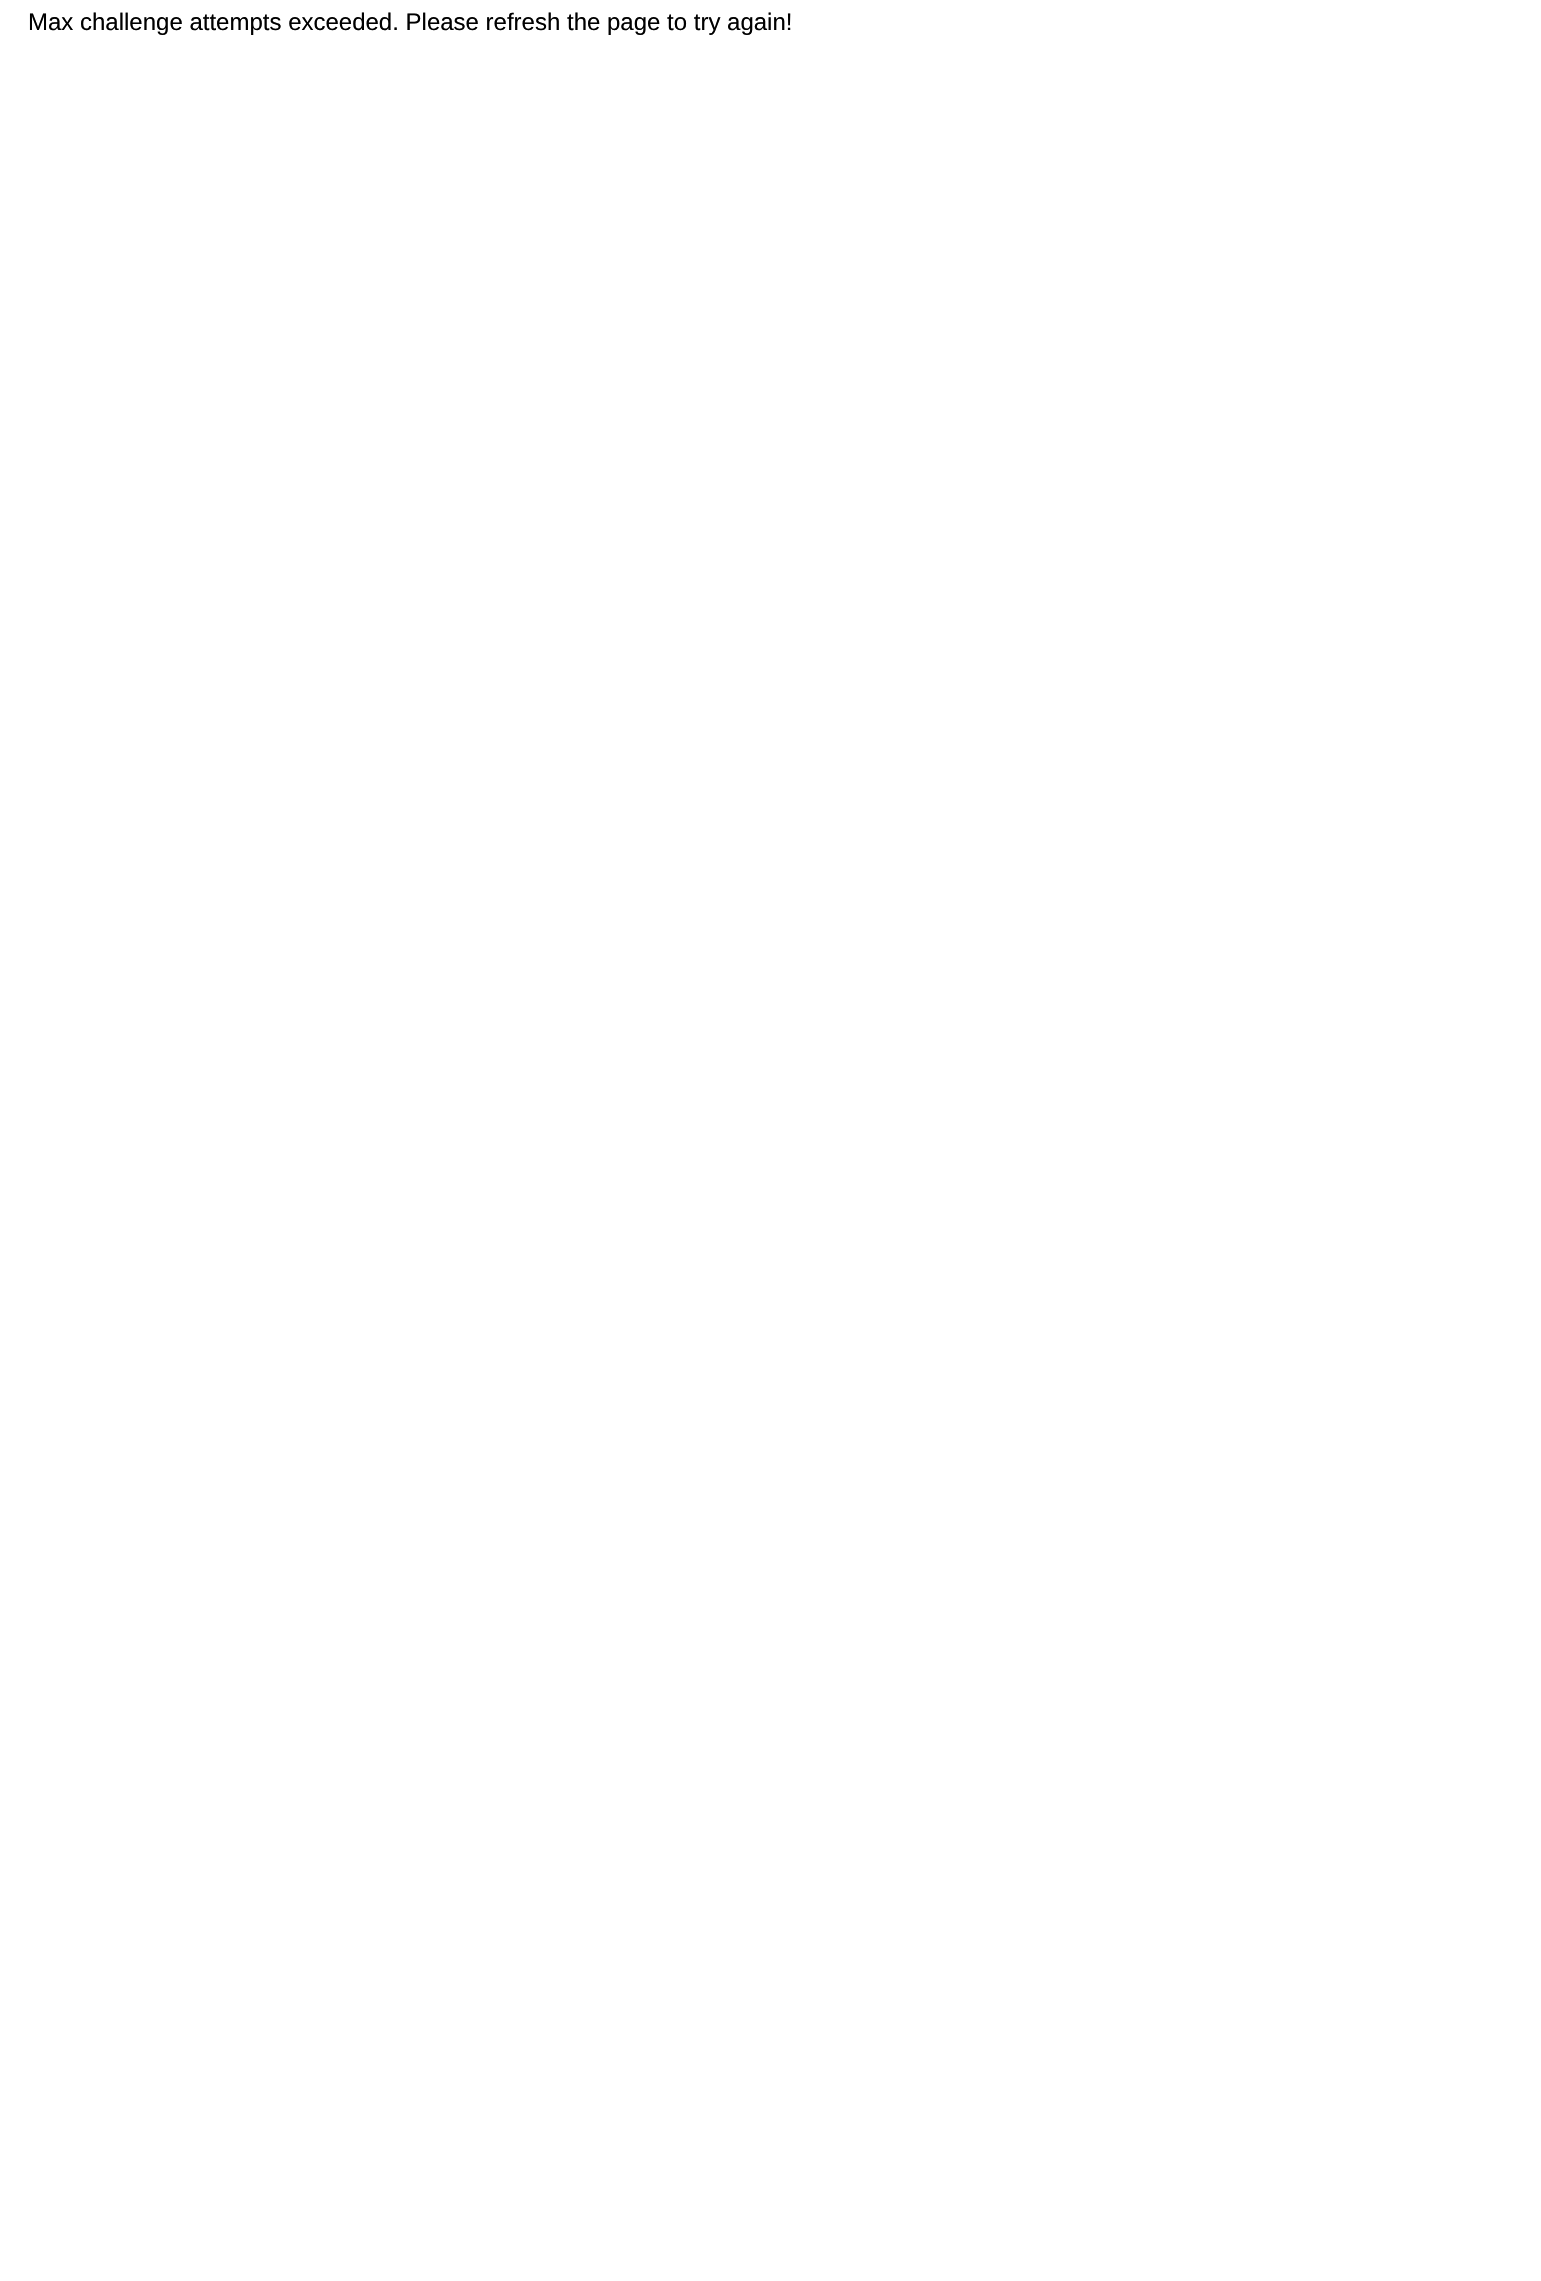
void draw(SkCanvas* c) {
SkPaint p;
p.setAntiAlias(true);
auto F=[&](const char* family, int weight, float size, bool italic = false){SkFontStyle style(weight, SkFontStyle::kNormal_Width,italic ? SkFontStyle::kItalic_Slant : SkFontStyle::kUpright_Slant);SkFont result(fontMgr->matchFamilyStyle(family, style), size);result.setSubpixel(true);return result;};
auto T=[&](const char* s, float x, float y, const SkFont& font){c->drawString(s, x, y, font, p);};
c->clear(0xffffffff);
auto f1 = F("Liberation Sans",400,24);
p.setColor(0xff000000);
T("Max challenge attempts exceeded. Please refresh the page to try again!",28,30,f1);
}
